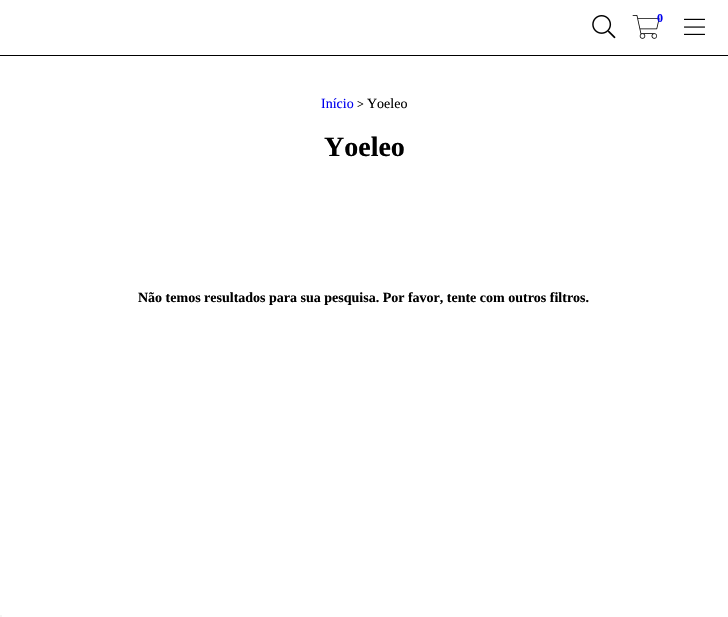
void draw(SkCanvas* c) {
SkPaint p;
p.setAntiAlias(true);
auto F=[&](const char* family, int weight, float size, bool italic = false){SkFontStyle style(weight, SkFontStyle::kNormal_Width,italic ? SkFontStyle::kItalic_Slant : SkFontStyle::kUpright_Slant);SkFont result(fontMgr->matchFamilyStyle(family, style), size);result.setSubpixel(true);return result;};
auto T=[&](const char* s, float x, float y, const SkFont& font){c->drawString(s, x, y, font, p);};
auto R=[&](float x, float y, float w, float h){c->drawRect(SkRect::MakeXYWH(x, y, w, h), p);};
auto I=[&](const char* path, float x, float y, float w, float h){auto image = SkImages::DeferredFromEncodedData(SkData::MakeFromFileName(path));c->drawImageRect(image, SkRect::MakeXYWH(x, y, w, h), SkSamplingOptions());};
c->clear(0xffffffff);
I("1.png",592,15,24,24);
I("2.png",632,15,28,24);
auto f1 = F("Liberation Serif",700,12);
p.setColor(0xff0000ee);
T("0",657,22,f1);
I("3.png",684,18,21,17);
p.setColor(0xff000000);
R(0,55,728,1);
auto f2 = F("Liberation Serif",400,14);
p.setColor(0xff0000ee);
T("Início",321,108,f2);
auto f3 = F("Liberation Serif",400,12);
p.setColor(0xff000000);
T(">",357,108,f3);
T("Yoeleo",367,108,f2);
auto f4 = F("Liberation Serif",700,28);
T("Yoeleo",324,156,f4);
auto f5 = F("Liberation Serif",700,14);
T("Não temos resultados para sua pesquisa. Por favor, tente com outros filtros.",138,302,f5);
p.setColor(0xfff5f5f5);
R(0,615,2,2);
}
